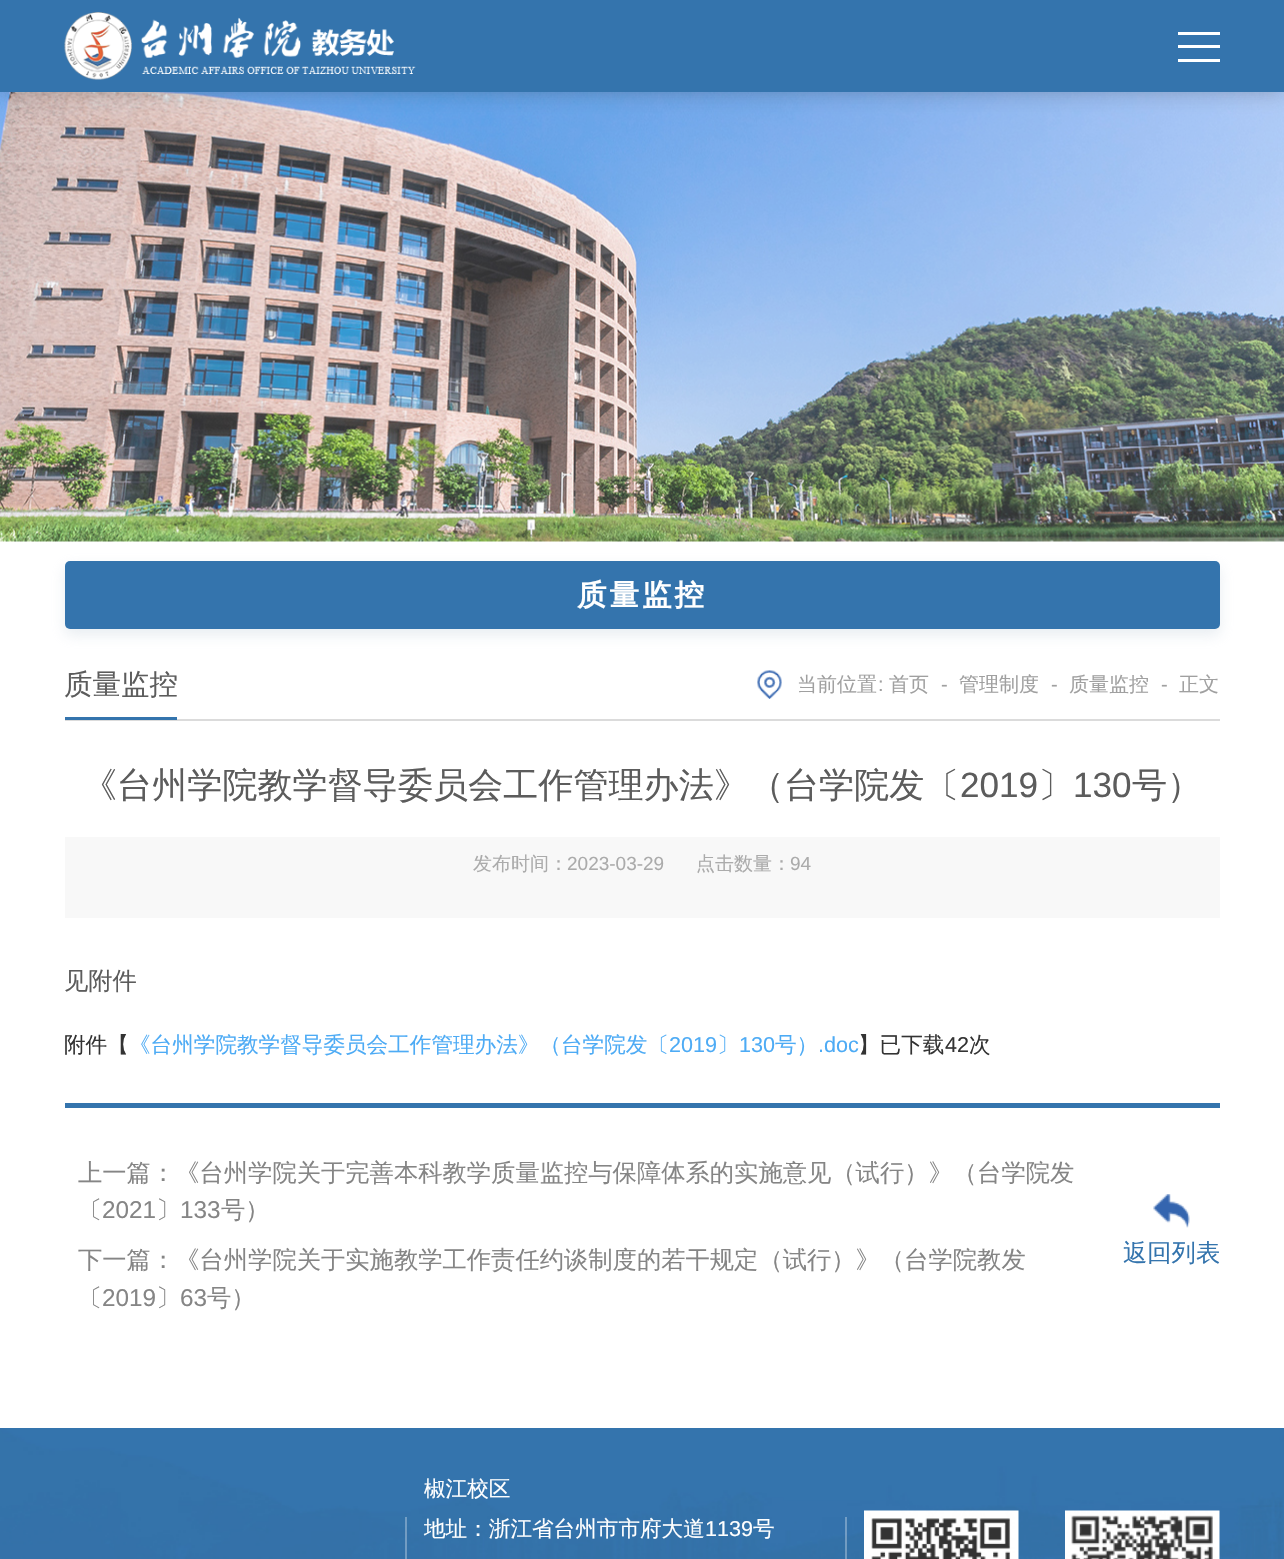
void draw(SkCanvas* c) {
SkPaint p;
p.setAntiAlias(true);
auto F=[&](const char* family, int weight, float size, bool italic = false){SkFontStyle style(weight, SkFontStyle::kNormal_Width,italic ? SkFontStyle::kItalic_Slant : SkFontStyle::kUpright_Slant);SkFont result(fontMgr->matchFamilyStyle(family, style), size);result.setSubpixel(true);return result;};
auto T=[&](const char* s, float x, float y, const SkFont& font){c->drawString(s, x, y, font, p);};
auto L=[&](const char* s, float x, float y, const SkFont& font, const SkPaint& ink, float letter, float word){std::vector<SkGlyphID> glyphs(font.countText(s, strlen(s), SkTextEncoding::kUTF8));std::vector<float> xs(glyphs.size());font.textToGlyphs(s, strlen(s), SkTextEncoding::kUTF8, glyphs);font.getXPos(glyphs, xs, x);float extra = 0;for (size_t i = 0; i < glyphs.size(); i++) {xs[i] += extra;extra += letter + word * (glyphs[i] == font.unicharToGlyph(' '));}c->drawTextBlob(SkTextBlob::MakeFromPosHGlyphs(glyphs, xs, y, font), 0, 0, ink);};
auto R=[&](float x, float y, float w, float h){c->drawRect(SkRect::MakeXYWH(x, y, w, h), p);};
auto Q=[&](float x, float y, float w, float h, float radius){c->drawRoundRect(SkRect::MakeXYWH(x, y, w, h), radius, radius, p);};
auto I=[&](const char* path, float x, float y, float w, float h){auto image = SkImages::DeferredFromEncodedData(SkData::MakeFromFileName(path));c->drawImageRect(image, SkRect::MakeXYWH(x, y, w, h), SkSamplingOptions());};
c->clear(0xffffffff);
I("2.png",0,92,1284,450);
p.setColor(0x4d333333);
p.setMaskFilter(SkMaskFilter::MakeBlur(kNormal_SkBlurStyle, 10));
c->drawRect(SkRect::MakeXYWH(0,0,1284,92),p);
p.setMaskFilter(nullptr);
p.setColor(0xff3474ad);
R(0,0,1284,92);
I("1.png",64,12,352,68);
p.setColor(0xffffffff);
R(1178,32,42,3);
R(1178,45,42,3);
R(1178,59,42,3);
p.setColor(0x52b7c8d2);
p.setMaskFilter(SkMaskFilter::MakeBlur(kNormal_SkBlurStyle, 7));
c->drawRoundRect(SkRect::MakeXYWH(65,567,1155,68),5,5,p);
p.setMaskFilter(nullptr);
p.setColor(0xff3474ad);
Q(65,561,1155,68,5);
auto f1 = F("WenQuanYi Zen Hei",700,29.5);
p.setColor(0xffffffff);
L("质量监控",577,605,f1,p,3,0);
p.setColor(0xffdbdbdb);
R(65,719,1155,2);
auto f2 = F("WenQuanYi Zen Hei",500,28.5);
p.setColor(0xff5c5c5c);
T("质量监控",64,694,f2);
p.setColor(0xff3474ad);
R(65,717,112,3);
I("3.png",757,670,25,29);
auto f3 = F("WenQuanYi Zen Hei",500,20);
p.setColor(0xffa0a0a0);
T("当前位置",797,691,f3);
auto f4 = F("Liberation Sans",400,20);
T(":",878,691,f4);
T("首页",889,691,f3);
T("-",941,691,f4);
T("管理制度",959,691,f3);
T("-",1051,691,f4);
T("质量监控",1069,691,f3);
T("-",1161,691,f4);
T("正文",1179,691,f3);
auto f5 = F("WenQuanYi Zen Hei",500,35.1);
p.setColor(0xff5c5c5c);
T("《台州学院教学督导委员会工作管理办法》（台学院发〔",82,797,f5);
auto f6 = F("Liberation Sans",400,35.1);
T("2019",960,797,f6);
T("〕",1038,797,f5);
T("130",1073,797,f6);
T("号）",1132,797,f5);
p.setColor(0xfff8f8f8);
R(65,837,1155,81);
auto f7 = F("WenQuanYi Zen Hei",500,19);
p.setColor(0xffababab);
T("发布时间：",473,870,f7);
auto f8 = F("Liberation Sans",400,19);
T("2023-03-29",567,870,f8);
T("点击数量：",696,870,f7);
T("94",790,870,f8);
auto f9 = F("WenQuanYi Zen Hei",500,24.3);
p.setColor(0xff5c5c5c);
T("见附件",64,989,f9);
auto f10 = F("WenQuanYi Zen Hei",500,21.6);
p.setColor(0xff333333);
T("附件【",64,1052,f10);
p.setColor(0xff4dabf5);
T("《台州学院教学督导委员会工作管理办法》（台学院发〔",129,1052,f10);
auto f11 = F("Liberation Sans",400,21.6);
T("2019",669,1052,f11);
T("〕",717,1052,f10);
T("130",739,1052,f11);
T("号）",775,1052,f10);
T(".doc",818,1052,f11);
p.setColor(0xff333333);
T("】已下载",858,1052,f10);
T("42",945,1052,f11);
T("次",969,1052,f10);
p.setColor(0xff3474ad);
R(65,1103,1155,5);
p.setColor(0xff858585);
T("上一篇：《台州学院关于完善本科教学质量监控与保障体系的实施意见（试行）》（台学院发",78,1181,f9);
T("〔",78,1218,f9);
auto f12 = F("Liberation Sans",400,24.3);
T("2021",102,1218,f12);
T("〕",156,1218,f9);
T("133",180,1218,f12);
T("号）",221,1218,f9);
T("下一篇：《台州学院关于实施教学工作责任约谈制度的若干规定（试行）》（台学院教发",78,1268,f9);
T("〔",78,1306,f9);
T("2019",102,1306,f12);
T("〕",156,1306,f9);
T("63",180,1306,f12);
T("号）",207,1306,f9);
I("4.png",1153,1194,37,34);
p.setColor(0xff3474ad);
T("返回列表",1123,1261,f9);
I("5.png",0,1428,1284,131);
p.setColor(0x4dffffff);
R(405,1517,2,42);
p.setColor(0xffffffff);
T("椒江校区",424,1496,f10);
T("地址：浙江省台州市市府大道",424,1536,f10);
T("1139",705,1536,f11);
T("号",753,1536,f10);
p.setColor(0x4dffffff);
R(845,1517,2,42);
I("6.png",864,1510,155,49);
I("7.png",1065,1510,155,49);
}
